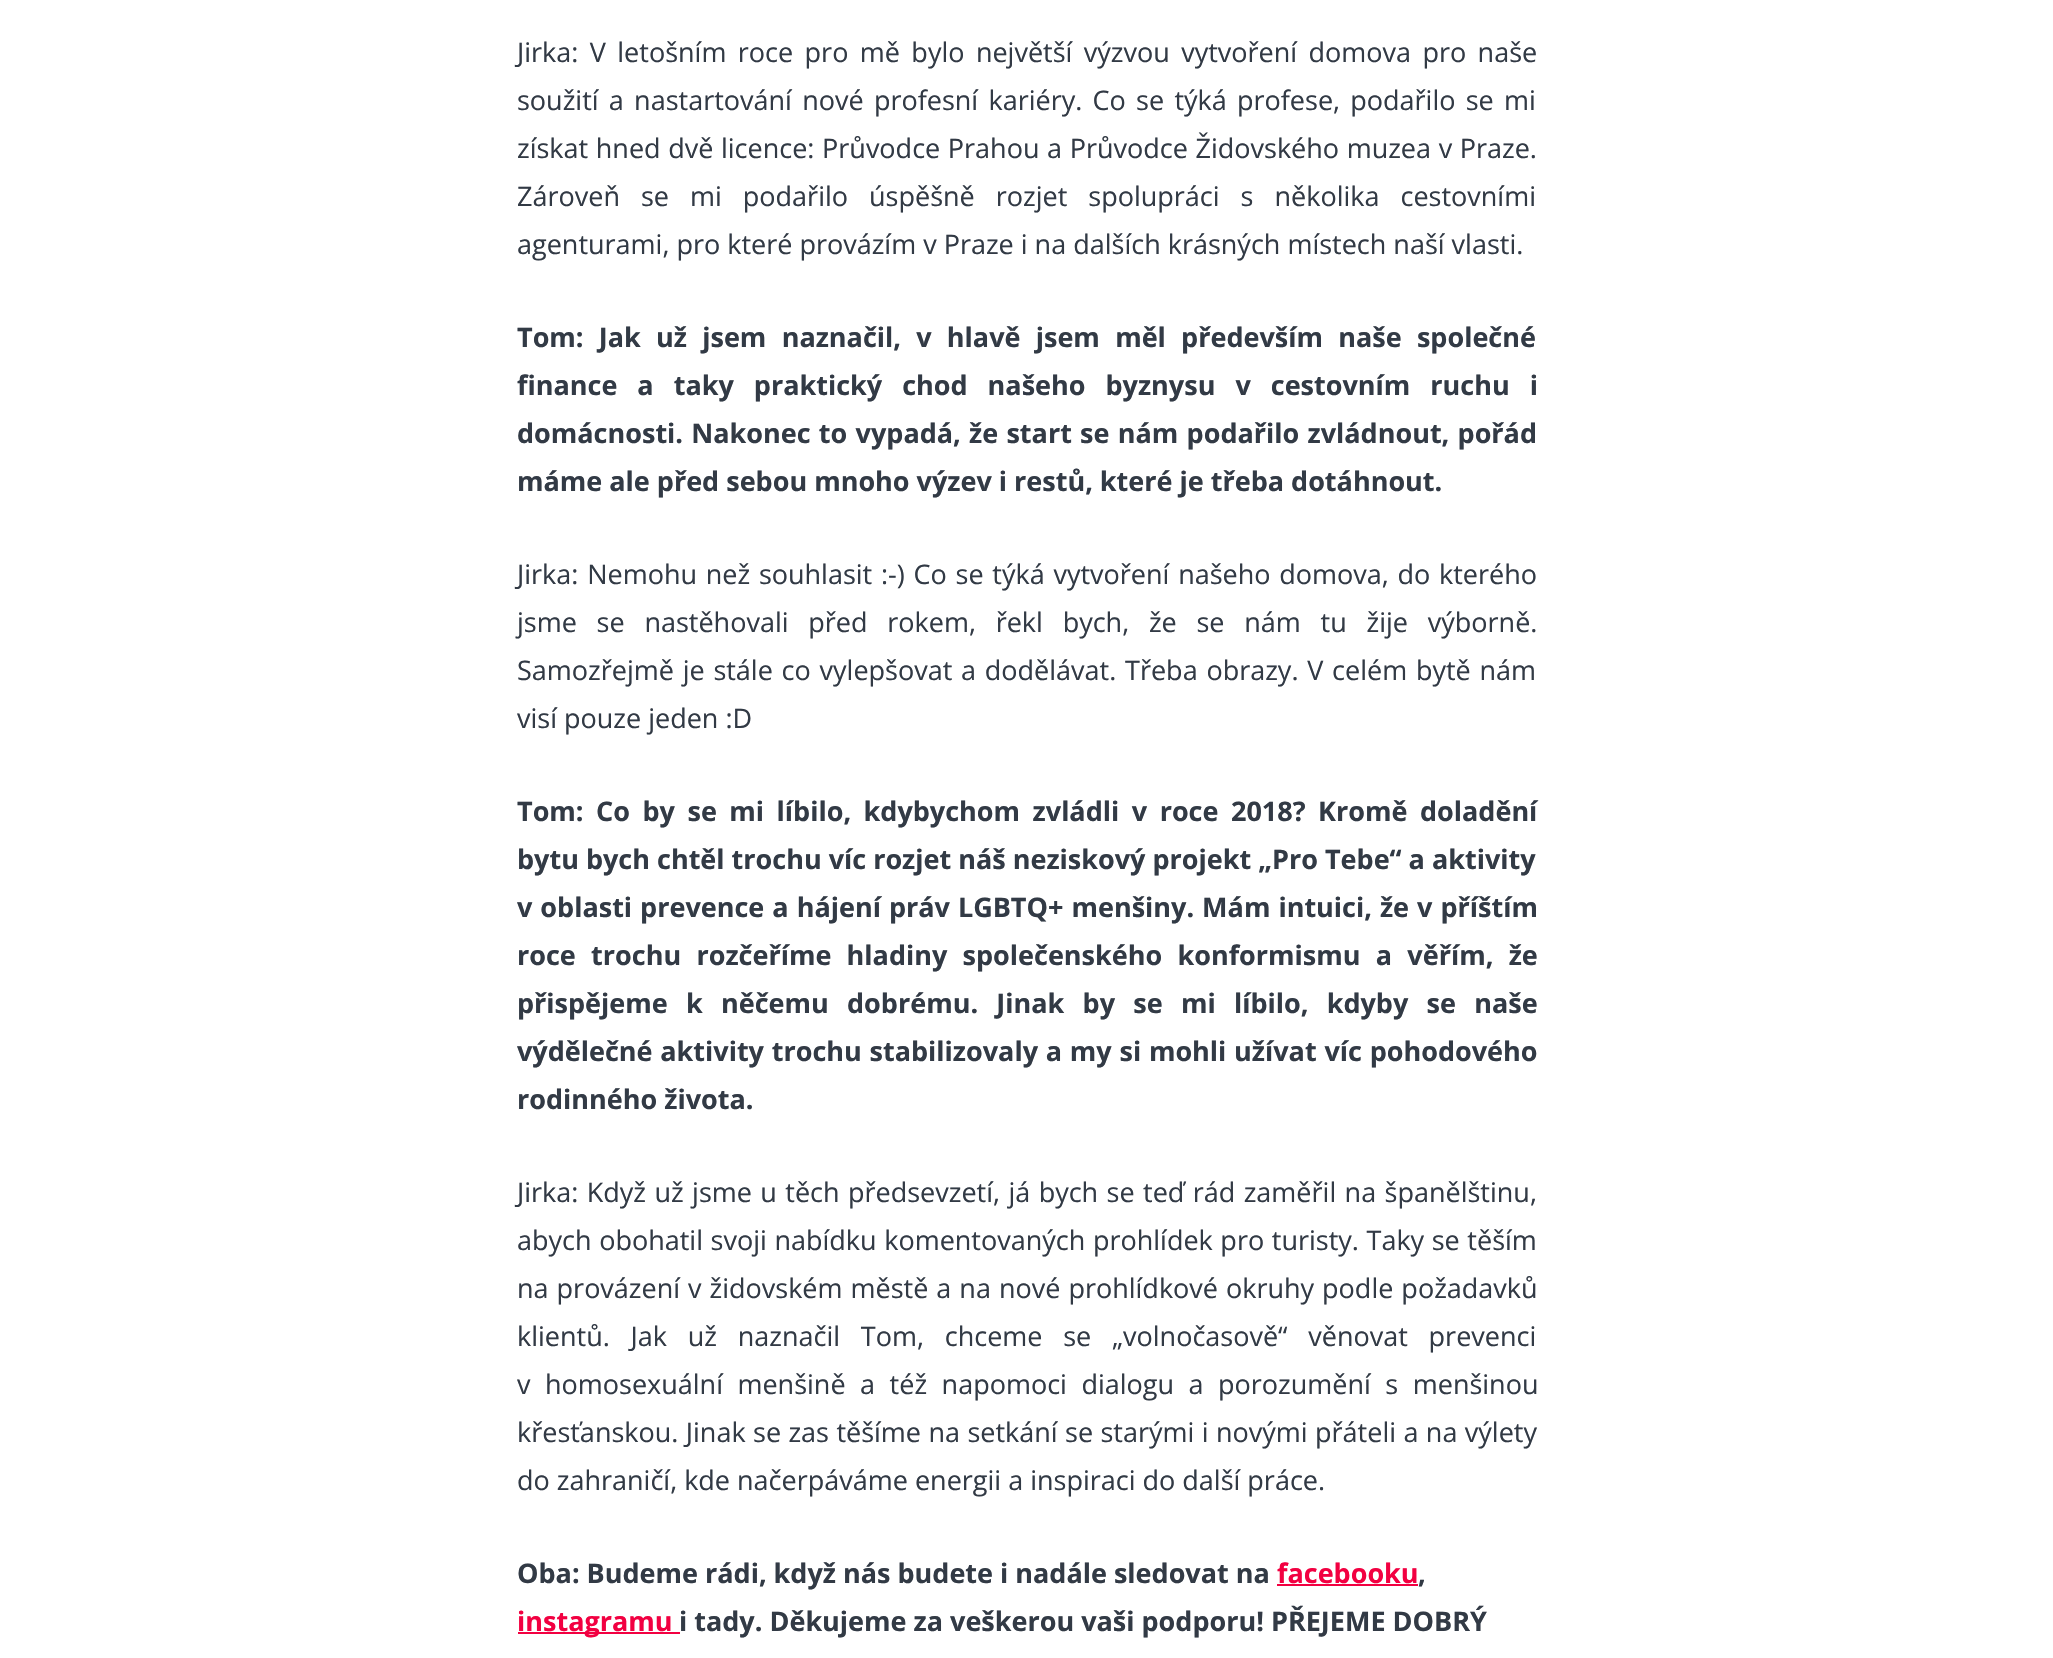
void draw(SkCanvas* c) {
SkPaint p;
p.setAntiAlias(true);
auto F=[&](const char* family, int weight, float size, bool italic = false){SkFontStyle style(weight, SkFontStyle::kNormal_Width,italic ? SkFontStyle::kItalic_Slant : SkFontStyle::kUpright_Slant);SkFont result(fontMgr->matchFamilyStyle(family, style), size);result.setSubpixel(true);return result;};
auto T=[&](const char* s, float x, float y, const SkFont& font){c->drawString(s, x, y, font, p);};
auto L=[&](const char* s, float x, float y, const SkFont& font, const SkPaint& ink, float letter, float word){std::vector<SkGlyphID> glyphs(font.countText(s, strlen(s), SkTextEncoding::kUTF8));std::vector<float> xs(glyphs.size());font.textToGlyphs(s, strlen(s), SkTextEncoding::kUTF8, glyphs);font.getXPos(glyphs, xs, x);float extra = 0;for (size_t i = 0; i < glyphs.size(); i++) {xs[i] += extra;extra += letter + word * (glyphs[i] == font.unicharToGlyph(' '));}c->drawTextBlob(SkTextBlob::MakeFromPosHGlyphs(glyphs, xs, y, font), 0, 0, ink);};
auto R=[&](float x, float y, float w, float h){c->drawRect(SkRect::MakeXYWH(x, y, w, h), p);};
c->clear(0xffffffff);
auto f1 = F("Open Sans",400,27);
p.setColor(0xff323a45);
L("Jirka: V letošním roce pro mě bylo největší výzvou vytvoření domova pro naše",517,62,f1,p,0,4.4);
L("soužití a nastartování nové profesní kariéry. Co se týká profese, podařilo se mi",517,110,f1,p,0,3.25);
L("získat hned dvě licence: Průvodce Prahou a Průvodce Židovského muzea v Praze.",517,158,f1,p,0,.6);
L("Zároveň se mi podařilo úspěšně rozjet spolupráci s několika cestovními",517,206,f1,p,0,14);
T("agenturami, pro které provázím v Praze i na dalších krásných místech naší vlasti.",517,254,f1);
auto f2 = F("Open Sans",700,27);
L("Tom: Jak už jsem naznačil, v hlavě jsem měl především naše společné",517,347,f2,p,0,8.25);
L("finance a taky praktický chod našeho byznysu v cestovním ruchu i",517,395,f2,p,0,13);
L("domácnosti. Nakonec to vypadá, že start se nám podařilo zvládnout, pořád",517,443,f2,p,0,1.25);
T("máme ale před sebou mnoho výzev i restů, které je třeba dotáhnout.",517,491,f2);
L("Jirka: Nemohu než souhlasit :-) Co se týká vytvoření našeho domova, do kterého",517,584,f1,p,0,1.75);
L("jsme se nastěhovali před rokem, řekl bych, že se nám tu žije výborně.",517,632,f1,p,0,12.75);
L("Samozřejmě je stále co vylepšovat a dodělávat. Třeba obrazy. V celém bytě nám",517,680,f1,p,0,1.75);
T("visí pouze jeden :D",517,728,f1);
L("Tom: Co by se mi líbilo, kdybychom zvládli v roce 2018? Kromě doladění",517,821,f2,p,0,5.5);
T("bytu bych chtěl trochu víc rozjet náš neziskový projekt „Pro Tebe“ a aktivity",517,869,f2);
L("v oblasti prevence a hájení práv LGBTQ+ menšiny. Mám intuici, že v příštím",517,917,f2,p,0,1);
L("roce trochu rozčeříme hladiny společenského konformismu a věřím, že",517,965,f2,p,0,8.25);
L("přispějeme k něčemu dobrému. Jinak by se mi líbilo, kdyby se naše",517,1013,f2,p,0,11.25);
L("výdělečné aktivity trochu stabilizovaly a my si mohli užívat víc pohodového",517,1061,f2,p,0,.75);
T("rodinného života.",517,1109,f2);
L("Jirka: Když už jsme u těch předsevzetí, já bych se teď rád zaměřil na španělštinu,",517,1202,f1,p,0,1.4);
L("abych obohatil svoji nabídku komentovaných prohlídek pro turisty. Taky se těším",517,1250,f1,p,0,.6);
L("na provázení v židovském městě a na nové prohlídkové okruhy podle požadavků",517,1298,f1,p,0,1);
L("klientů. Jak už naznačil Tom, chceme se „volnočasově“ věnovat prevenci",517,1346,f1,p,0,13.75);
L("v homosexuální menšině a též napomoci dialogu a porozumění s menšinou",517,1394,f1,p,0,7.5);
L("křesťanskou. Jinak se zas těšíme na setkání se starými i novými přáteli a na výlety",517,1442,f1,p,0,.4);
T("do zahraničí, kde načerpáváme energii a inspiraci do další práce.",517,1490,f1);
T("Oba: Budeme rádi, když nás budete i nadále sledovat na",517,1583,f2);
p.setColor(0xfff20041);
T("facebooku",1277,1583,f2);
p.setColor(0xff323a45);
T(",",1418,1583,f2);
p.setColor(0xfff20041);
R(1277,1584,141,2);
R(518,1632,162,2);
T("instagramu",517,1631,f2);
p.setColor(0xff323a45);
T("i tady. Děkujeme za veškerou vaši podporu! PŘEJEME DOBRÝ",679,1631,f2);
}
